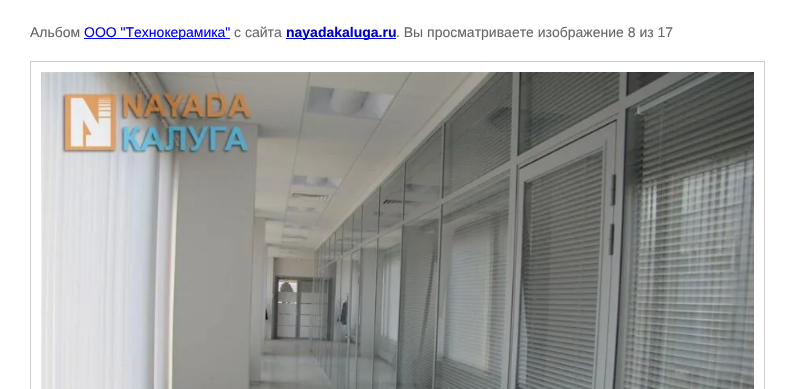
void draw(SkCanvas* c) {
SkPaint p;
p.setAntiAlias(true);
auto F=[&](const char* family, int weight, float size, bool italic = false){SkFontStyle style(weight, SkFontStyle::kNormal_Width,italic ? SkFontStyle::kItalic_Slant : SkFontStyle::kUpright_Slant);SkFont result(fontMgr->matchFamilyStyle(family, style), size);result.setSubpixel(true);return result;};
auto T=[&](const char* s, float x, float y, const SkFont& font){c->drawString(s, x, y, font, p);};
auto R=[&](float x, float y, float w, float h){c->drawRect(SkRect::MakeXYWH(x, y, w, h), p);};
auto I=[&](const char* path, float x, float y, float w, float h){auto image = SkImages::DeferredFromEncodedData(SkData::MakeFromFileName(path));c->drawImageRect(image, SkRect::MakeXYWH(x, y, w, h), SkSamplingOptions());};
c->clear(0xffffffff);
auto f1 = F("Liberation Sans",400,14);
p.setColor(0xff666666);
T("Альбом",30,37,f1);
p.setColor(0xff0000ff);
R(84,38,146,1);
T("ООО \"Технокерамика\"",84,37,f1);
p.setColor(0xff666666);
T("с сайта",234,37,f1);
p.setColor(0xff0000cc);
R(286,38,110,1);
auto f2 = F("Liberation Sans",700,14);
T("nayadakaluga.ru",286,37,f2);
p.setColor(0xff666666);
T(". Вы просматриваете изображение 8 из 17",396,37,f1);
p.setStroke(true);
p.setStrokeWidth(1);
p.setColor(0xffcccccc);
c->drawRect(SkRect::MakeXYWH(30.5,61.5,734,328),p);
I("1.png",41,72,713,317);
}
